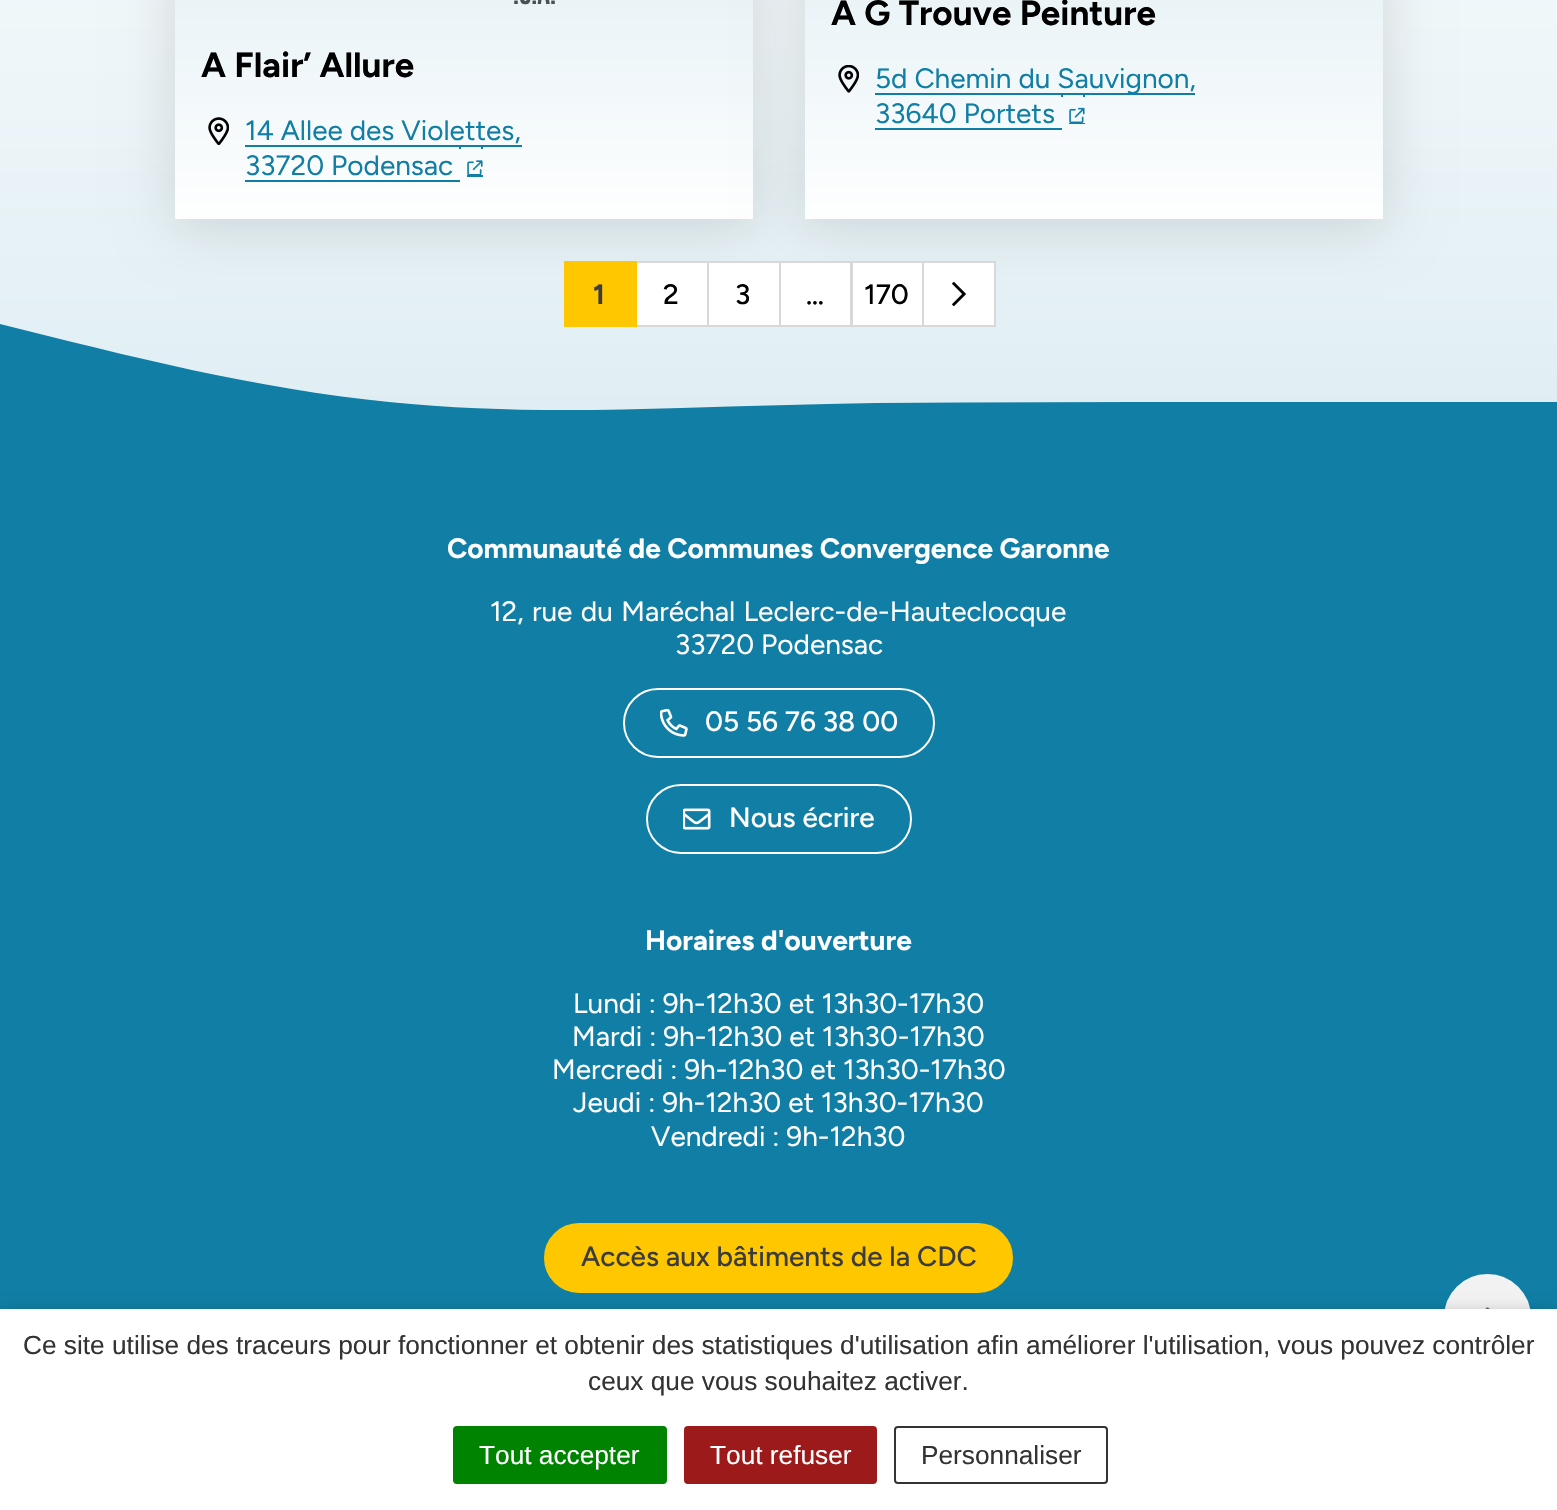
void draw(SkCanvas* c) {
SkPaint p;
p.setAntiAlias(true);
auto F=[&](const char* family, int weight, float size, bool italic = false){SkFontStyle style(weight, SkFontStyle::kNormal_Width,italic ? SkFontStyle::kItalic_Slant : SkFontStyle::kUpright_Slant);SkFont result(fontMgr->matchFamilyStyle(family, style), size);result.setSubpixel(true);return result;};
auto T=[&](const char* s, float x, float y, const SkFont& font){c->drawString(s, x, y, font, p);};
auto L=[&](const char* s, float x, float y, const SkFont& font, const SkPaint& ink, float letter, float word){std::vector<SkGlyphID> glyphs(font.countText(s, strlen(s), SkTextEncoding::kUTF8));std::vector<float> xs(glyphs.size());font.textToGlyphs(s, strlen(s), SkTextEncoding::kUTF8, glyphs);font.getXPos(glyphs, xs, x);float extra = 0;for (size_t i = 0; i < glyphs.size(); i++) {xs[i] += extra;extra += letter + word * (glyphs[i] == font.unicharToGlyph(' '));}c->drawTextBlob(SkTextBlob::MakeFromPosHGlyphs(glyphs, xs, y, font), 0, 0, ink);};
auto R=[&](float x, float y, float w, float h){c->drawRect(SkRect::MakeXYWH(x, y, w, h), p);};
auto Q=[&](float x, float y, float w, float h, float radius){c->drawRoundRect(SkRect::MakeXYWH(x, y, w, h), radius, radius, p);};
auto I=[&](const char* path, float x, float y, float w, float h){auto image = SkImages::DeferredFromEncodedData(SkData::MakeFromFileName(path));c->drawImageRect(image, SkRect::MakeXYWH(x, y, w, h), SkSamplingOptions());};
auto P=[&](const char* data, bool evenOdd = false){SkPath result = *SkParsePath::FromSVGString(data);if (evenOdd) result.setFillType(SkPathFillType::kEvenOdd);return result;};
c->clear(0xffffffff);
{
const SkColor colors[] = {0xffdcecf2,0xffffffff};
const float stops[] = {0,1};
const SkPoint ends[] = {{779,506}, {779,-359}};
p.setShader(SkGradientShader::MakeLinear(ends, colors, stops, 2, SkTileMode::kClamp));
p.setAlpha(255);
}
R(0,0,1557,411);
p.setShader(nullptr);
p.setColor(0x21000000);
p.setMaskFilter(SkMaskFilter::MakeBlur(kNormal_SkBlurStyle, 26));
c->drawRect(SkRect::MakeXYWH(175,-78,578,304),p);
p.setMaskFilter(nullptr);
{
const SkColor colors[] = {0xffe7f2f6,0xffffffff};
const float stops[] = {.34,1};
const SkPoint ends[] = {{464,-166}, {464,231}};
p.setShader(SkGradientShader::MakeLinear(ends, colors, stops, 2, SkTileMode::kClamp));
p.setAlpha(255);
}
R(175,0,578,219);
auto f1 = F("Bebas Neue",400,32);
p.setShader(nullptr);
p.setColor(0xff495057);
T(".C.A.",513,4,f1);
auto f2 = F("Figtree",300,35);
p.setColor(0xff000000);
T("A Flair’ Allure",201,77,f2);
I("1.png",208,117,21,28);
p.setColor(0xff107ea5);
R(245,145,277,2);
R(245,180,215,2);
R(459,147,2,2);
R(467,175,16,2);
R(481,147,2,2);
auto f3 = F("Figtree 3",300,28);
T("14 Allee des Violettes,",245,140,f3);
T("33720 Podensac",245,175,f3);
I("2.png",467,160,16,15);
p.setColor(0x21000000);
p.setMaskFilter(SkMaskFilter::MakeBlur(kNormal_SkBlurStyle, 26));
c->drawRect(SkRect::MakeXYWH(805,-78,578,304),p);
p.setMaskFilter(nullptr);
{
const SkColor colors[] = {0xffe7f2f6,0xffffffff};
const float stops[] = {.34,1};
const SkPoint ends[] = {{1094,-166}, {1094,231}};
p.setShader(SkGradientShader::MakeLinear(ends, colors, stops, 2, SkTileMode::kClamp));
p.setAlpha(255);
}
R(805,0,578,219);
p.setShader(nullptr);
p.setColor(0xff000000);
T("A G Trouve Peinture",831,25,f2);
I("3.png",838,65,21,28);
p.setColor(0xff107ea5);
R(875,93,320,2);
R(875,128,187,2);
R(1061,95,2,2);
R(1069,123,16,1);
R(1083,95,2,2);
T("5d Chemin du Sauvignon,",875,88,f3);
T("33640 Portets",875,123,f3);
I("4.png",1069,107,16,16);
c->drawPath(P("M1557 402h-340c-114 0-227 0-341 1c-65 1-130 3-195 5c-97 3-195 4-292-6c-132-13-261-46-389-78v91h1557z",true),p);
p.setColor(0xffffffff);
c->drawRect(SkRect::MakeXYWH(636,262,72,64),p);
p.setStroke(true);
p.setStrokeWidth(2);
p.setColor(0xffd8d8d8);
c->drawRect(SkRect::MakeXYWH(636,262,72,64),p);
p.setStroke(false);
p.setColor(0xfffec700);
R(564,261,73,66);
auto f4 = F("Figtree",300,28);
p.setColor(0xff3c3c3c);
T("1",593,304,f4);
auto f5 = F("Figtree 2",300,28);
p.setColor(0xff000000);
T("2",663,304,f5);
p.setColor(0xffffffff);
c->drawRect(SkRect::MakeXYWH(708,262,72,64),p);
p.setStroke(true);
p.setColor(0xffd8d8d8);
c->drawRect(SkRect::MakeXYWH(708,262,72,64),p);
p.setStroke(false);
p.setColor(0xff000000);
T("3",735,304,f5);
p.setColor(0xffffffff);
c->drawRect(SkRect::MakeXYWH(780,262,71,64),p);
p.setStroke(true);
p.setColor(0xffd8d8d8);
c->drawRect(SkRect::MakeXYWH(780,262,71,64),p);
p.setStroke(false);
p.setColor(0xff000000);
T("…",806,304,f5);
p.setColor(0xffffffff);
c->drawRect(SkRect::MakeXYWH(852,262,71,64),p);
p.setStroke(true);
p.setColor(0xffd8d8d8);
c->drawRect(SkRect::MakeXYWH(852,262,71,64),p);
p.setStroke(false);
p.setColor(0xff000000);
T("170",864,304,f5);
p.setColor(0xffffffff);
c->drawRect(SkRect::MakeXYWH(923,262,72,64),p);
p.setStroke(true);
p.setColor(0xffd8d8d8);
c->drawRect(SkRect::MakeXYWH(923,262,72,64),p);
I("5.png",952,281,14,26);
p.setStroke(false);
p.setColor(0xff107ea5);
R(0,415,1557,894);
p.setColor(0xffffffff);
T("Communauté de Communes Convergence Garonne",447,558,f4);
L("12, rue du Maréchal Leclerc-de-Hauteclocque",490,621,f3,p,0,1.5);
T("33720 Podensac",675,654,f3);
p.setStroke(true);
c->drawRoundRect(SkRect::MakeXYWH(624,689,310,68),34,34,p);
I("6.png",660,709,28,28);
p.setStroke(false);
T("05 56 76 38 00",705,731,f5);
p.setStroke(true);
c->drawRoundRect(SkRect::MakeXYWH(647,785,264,68),34,34,p);
I("7.png",683,808,28,22);
p.setStroke(false);
T("Nous écrire",729,827,f5);
T("Horaires d'ouverture",645,950,f4);
T("Lundi : 9h-12h30 et 13h30-17h30",573,1013,f3);
T("Mardi : 9h-12h30 et 13h30-17h30",572,1046,f3);
T("Mercredi : 9h-12h30 et 13h30-17h30",552,1079,f3);
T("Jeudi : 9h-12h30 et 13h30-17h30",573,1112,f3);
T("Vendredi : 9h-12h30",651,1146,f3);
p.setColor(0xfffec700);
c->drawRoundRect(SkRect::MakeXYWH(545,1224,467,68),34,34,p);
p.setStroke(true);
c->drawRoundRect(SkRect::MakeXYWH(545,1224,467,68),34,34,p);
p.setStroke(false);
p.setColor(0xff3c3c3c);
T("Accès aux bâtiments de la CDC",581,1266,f5);
p.setColor(0xfff2f2f2);
c->drawRoundRect(SkRect::MakeXYWH(1446,1276,83,84),41.5,41.5,p);
p.setStroke(true);
p.setStrokeWidth(4);
c->drawRoundRect(SkRect::MakeXYWH(1446,1276,83,84),41.5,41.5,p);
I("8.png",1485,1307,5,2);
p.setStroke(false);
p.setColor(0x80000000);
p.setMaskFilter(SkMaskFilter::MakeBlur(kNormal_SkBlurStyle, 9));
c->drawRect(SkRect::MakeXYWH(0,1318,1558,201),p);
p.setMaskFilter(nullptr);
p.setColor(0xffffffff);
R(0,1309,1557,201);
auto f6 = F("Liberation Sans",400,26.25);
p.setColor(0xff333333);
T("Ce site utilise des traceurs pour fonctionner et obtenir des statistiques d'utilisation afin améliorer l'utilisation, vous pouvez contrôler",23,1354,f6);
T("ceux que vous souhaitez activer.",588,1390,f6);
p.setColor(0xff008300);
Q(453,1426,214,58,4);
p.setColor(0xffffffff);
T("Tout accepter",479,1464,f6);
p.setColor(0xff9c1a1a);
Q(684,1426,193,58,4);
p.setColor(0xffffffff);
T("Tout refuser",710,1464,f6);
p.setStroke(true);
p.setStrokeWidth(2);
p.setColor(0xff333333);
c->drawRoundRect(SkRect::MakeXYWH(895,1427,212,56),3,3,p);
p.setStroke(false);
T("Personnaliser",921,1464,f6);
}
